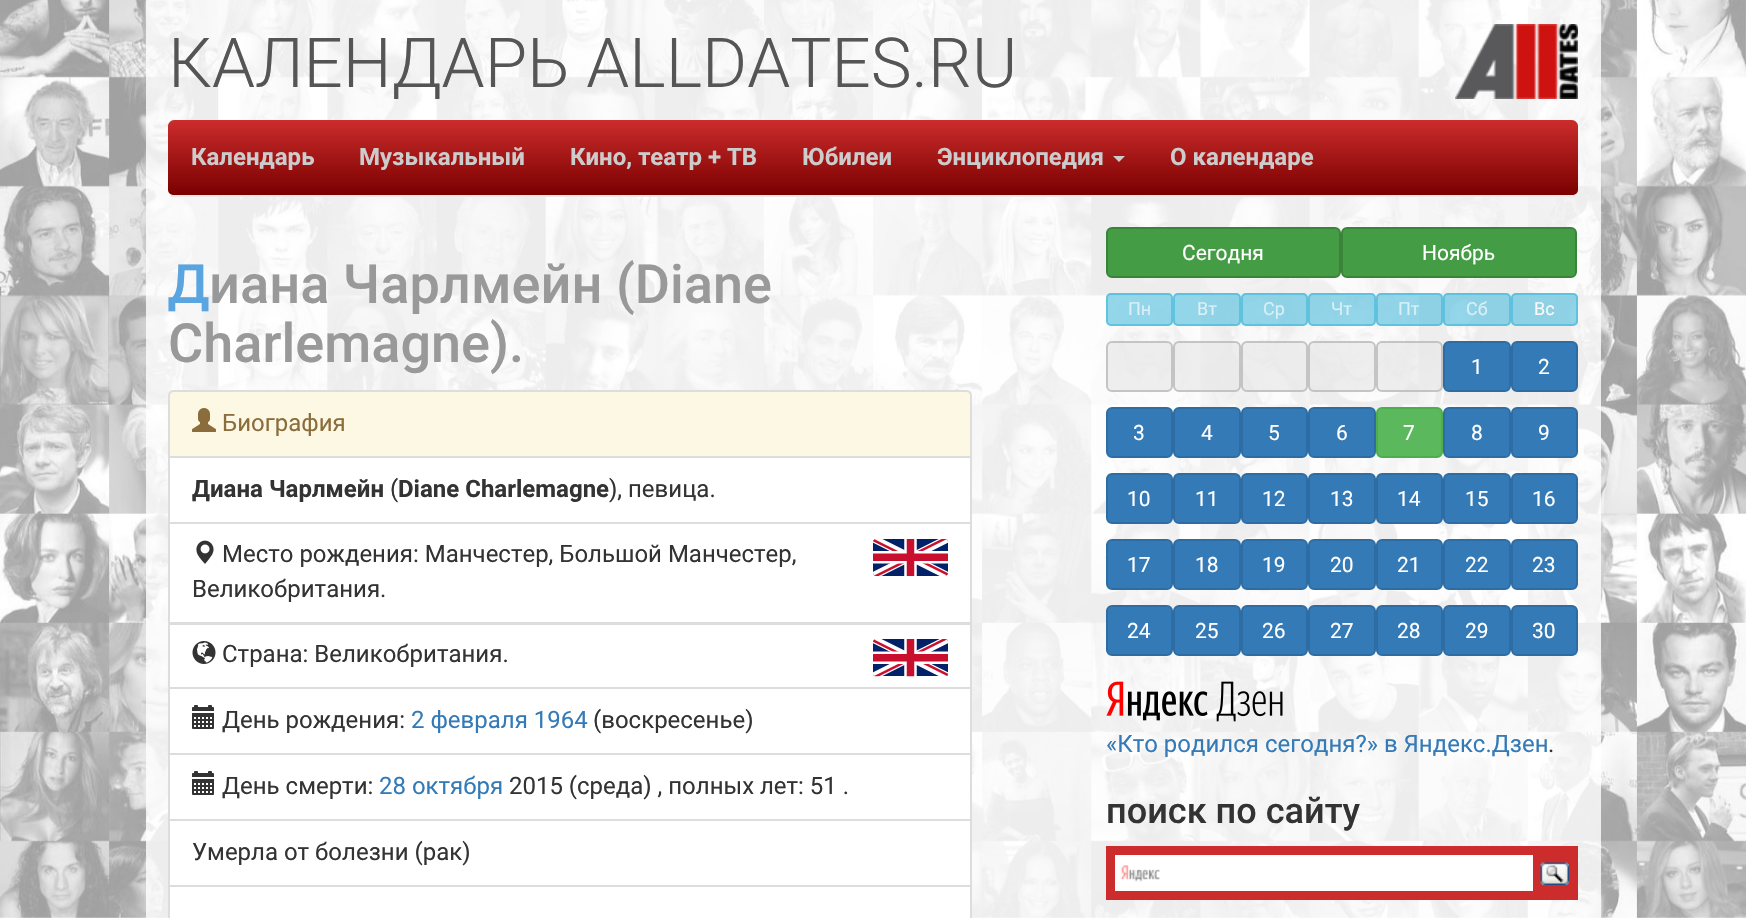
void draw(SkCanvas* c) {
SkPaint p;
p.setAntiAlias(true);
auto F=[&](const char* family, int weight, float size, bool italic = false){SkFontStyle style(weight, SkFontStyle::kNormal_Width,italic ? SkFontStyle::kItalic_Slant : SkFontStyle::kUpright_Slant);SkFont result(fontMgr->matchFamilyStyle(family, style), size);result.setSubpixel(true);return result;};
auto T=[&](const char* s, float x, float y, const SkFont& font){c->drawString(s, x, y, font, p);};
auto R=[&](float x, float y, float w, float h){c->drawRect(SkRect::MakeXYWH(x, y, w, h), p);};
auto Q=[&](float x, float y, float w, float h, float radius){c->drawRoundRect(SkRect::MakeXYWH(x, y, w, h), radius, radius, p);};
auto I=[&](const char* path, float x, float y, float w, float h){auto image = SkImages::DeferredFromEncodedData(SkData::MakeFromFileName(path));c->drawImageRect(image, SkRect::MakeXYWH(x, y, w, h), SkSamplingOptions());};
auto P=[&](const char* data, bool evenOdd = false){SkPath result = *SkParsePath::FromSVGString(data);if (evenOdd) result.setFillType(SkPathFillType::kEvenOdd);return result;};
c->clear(0xffffffff);
I("1.png",0,0,1746,918);
p.setColor(0xccffffff);
R(146,0,1455,918);
auto f1 = F("Roboto",300,69);
p.setColor(0xff555555);
T("КАЛЕНДАРЬ ALLDATES.RU",168,87,f1);
I("2.png",1455,24,123,75);
{
const SkColor colors[] = {0xffcc2c2c,0xff7a0000};
const float stops[] = {0,1};
const SkPoint ends[] = {{873,120}, {873,195}};
p.setShader(SkGradientShader::MakeLinear(ends, colors, stops, 2, SkTileMode::kClamp));
p.setAlpha(255);
}
c->drawPath(P("M174 120h1398c3 0 6 3 6 6v64c0 3-3 5-6 5h-1398c-3 0-6-2-6-5v-64c0-3 3-6 6-6z"),p);
p.setShader(nullptr);
p.setColor(0xffe7e7e7);
R(171,195,1404,2);
auto f2 = F("Roboto",700,24);
p.setColor(0xffcccccc);
T("Календарь",191,165,f2);
T("Музыкальный",359,165,f2);
T("Кино, театр + ТВ",570,165,f2);
T("Юбилеи",802,165,f2);
T("Энциклопедия",937,165,f2);
c->drawPath(P("M1113 156h12l-6 6z"),p);
T("О календаре",1170,165,f2);
auto f3 = F("Noto Sans",600,54);
p.setColor(0xff5aa4e0);
T("Д",168,303,f3);
auto f4 = F("Roboto",500,54);
p.setColor(0xff999999);
T("иана Чарлмейн (Diane",209,303,f4);
T("Charlemagne).",168,362,f4);
p.setColor(0xfffcf8e3);
c->drawPath(P("M174 391h792c3 0 5 2 5 5v61h-802v-61c0-3 2-5 5-5z"),p);
p.setStroke(true);
p.setStrokeWidth(2);
p.setColor(0xffdddddd);
c->drawPath(P("M174 391h792c3 0 5 2 5 5v61h-802v-61c0-3 2-5 5-5z"),p);
I("3.png",192,408,24,24);
auto f5 = F("Roboto",400,24);
p.setStroke(false);
p.setColor(0xff8a6d3b);
T("Биография",222,431,f5);
p.setColor(0xffffffff);
c->drawRect(SkRect::MakeXYWH(169,457,802,66),p);
p.setStroke(true);
p.setColor(0xffdddddd);
c->drawRect(SkRect::MakeXYWH(169,457,802,66),p);
p.setStroke(false);
p.setColor(0xff333333);
T("Диана Чарлмейн",192,497,f2);
T("(",390,497,f5);
T("Diane Charlemagne",398,497,f2);
T("), певица.",609,497,f5);
p.setColor(0xffffffff);
c->drawRect(SkRect::MakeXYWH(169,523,802,100),p);
p.setStroke(true);
p.setColor(0xffdddddd);
c->drawRect(SkRect::MakeXYWH(169,523,802,100),p);
I("4.png",196,540,18,24);
p.setStroke(false);
p.setColor(0xff333333);
T("Место рождения: Манчестер, Большой Манчестер,",222,562,f5);
I("5.png",873,539,75,37);
T("Великобритания.",192,597,f5);
p.setColor(0xffffffff);
c->drawRect(SkRect::MakeXYWH(169,624,802,64),p);
p.setStroke(true);
p.setColor(0xffdddddd);
c->drawRect(SkRect::MakeXYWH(169,624,802,64),p);
I("6.png",192,641,24,23);
p.setStroke(false);
p.setColor(0xff333333);
T("Страна: Великобритания.",222,662,f5);
I("7.png",873,639,75,38);
p.setColor(0xffffffff);
c->drawRect(SkRect::MakeXYWH(169,688,802,66),p);
p.setStroke(true);
p.setColor(0xffdddddd);
c->drawRect(SkRect::MakeXYWH(169,688,802,66),p);
I("8.png",192,705,22,24);
p.setStroke(false);
p.setColor(0xff333333);
T("День рождения:",222,728,f5);
p.setColor(0xff337ab7);
T("2 февраля 1964",411,728,f5);
p.setColor(0xff333333);
T("(воскресенье)",593,728,f5);
p.setColor(0xffffffff);
c->drawRect(SkRect::MakeXYWH(169,754,802,66),p);
p.setStroke(true);
p.setColor(0xffdddddd);
c->drawRect(SkRect::MakeXYWH(169,754,802,66),p);
I("8.png",192,771,22,24);
p.setStroke(false);
p.setColor(0xff333333);
T("День смерти:",222,794,f5);
p.setColor(0xff337ab7);
T("28 октября",379,794,f5);
p.setColor(0xff333333);
T("2015 (среда) , полных лет: 51 .",509,794,f5);
p.setColor(0xffffffff);
c->drawRect(SkRect::MakeXYWH(169,820,802,66),p);
p.setStroke(true);
p.setColor(0xffdddddd);
c->drawRect(SkRect::MakeXYWH(169,820,802,66),p);
p.setStroke(false);
p.setColor(0xff333333);
T("Умерла от болезни (рак)",192,860,f5);
p.setColor(0xffffffff);
c->drawRect(SkRect::MakeXYWH(169,886,802,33),p);
p.setStroke(true);
p.setColor(0xffdddddd);
c->drawRect(SkRect::MakeXYWH(169,886,802,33),p);
p.setStroke(false);
p.setColor(0xff449d44);
c->drawRoundRect(SkRect::MakeXYWH(1107,228,233,49),5,5,p);
p.setStroke(true);
p.setColor(0xff398439);
c->drawRoundRect(SkRect::MakeXYWH(1107,228,233,49),5,5,p);
auto f6 = F("Roboto",400,21);
p.setStroke(false);
p.setColor(0xffffffff);
T("Сегодня",1182,260,f6);
p.setColor(0xff449d44);
c->drawRoundRect(SkRect::MakeXYWH(1342,228,234,49),5,5,p);
p.setStroke(true);
p.setColor(0xff398439);
c->drawRoundRect(SkRect::MakeXYWH(1342,228,234,49),5,5,p);
p.setStroke(false);
p.setColor(0xffffffff);
T("Ноябрь",1422,260,f6);
p.setColor(0xa65bc0de);
Q(1106,293,67,33,5);
p.setStroke(true);
p.setColor(0xa646b8da);
c->drawRoundRect(SkRect::MakeXYWH(1107,294,65,31),4,4,p);
auto f7 = F("Roboto",400,18);
p.setStroke(false);
p.setColor(0xffd9f0f7);
T("Пн",1128,315,f7);
p.setColor(0xa65bc0de);
Q(1173,293,68,33,5);
p.setStroke(true);
p.setColor(0xa646b8da);
c->drawRoundRect(SkRect::MakeXYWH(1174,294,66,31),4,4,p);
p.setStroke(false);
p.setColor(0xffd9f0f7);
T("Вт",1197,315,f7);
p.setColor(0xa65bc0de);
Q(1241,293,67,33,5);
p.setStroke(true);
p.setColor(0xa646b8da);
c->drawRoundRect(SkRect::MakeXYWH(1242,294,65,31),4,4,p);
p.setStroke(false);
p.setColor(0xffd9f0f7);
T("Ср",1263,315,f7);
p.setColor(0xa65bc0de);
Q(1308,293,68,33,5);
p.setStroke(true);
p.setColor(0xa646b8da);
c->drawRoundRect(SkRect::MakeXYWH(1309,294,66,31),4,4,p);
p.setStroke(false);
p.setColor(0xffd9f0f7);
T("Чт",1331,315,f7);
p.setColor(0xa65bc0de);
Q(1376,293,67,33,5);
p.setStroke(true);
p.setColor(0xa646b8da);
c->drawRoundRect(SkRect::MakeXYWH(1377,294,65,31),4,4,p);
p.setStroke(false);
p.setColor(0xffd9f0f7);
T("Пт",1398,315,f7);
p.setColor(0xa65bc0de);
Q(1443,293,68,33,5);
p.setStroke(true);
p.setColor(0xa646b8da);
c->drawRoundRect(SkRect::MakeXYWH(1444,294,66,31),4,4,p);
p.setStroke(false);
p.setColor(0xffd9f0f7);
T("Сб",1466,315,f7);
p.setColor(0xa65bc0de);
Q(1511,293,67,33,5);
p.setStroke(true);
p.setColor(0xa646b8da);
c->drawRoundRect(SkRect::MakeXYWH(1512,294,65,31),4,4,p);
p.setStroke(false);
p.setColor(0xfff9f9f9);
T("Вс",1534,315,f7);
p.setColor(0xa6e6e6e6);
Q(1106,341,67,51,6);
p.setStroke(true);
p.setColor(0xa6adadad);
c->drawRoundRect(SkRect::MakeXYWH(1107,342,65,49),5,5,p);
p.setStroke(false);
p.setColor(0xa6e6e6e6);
Q(1173,341,68,51,6);
p.setStroke(true);
p.setColor(0xa6adadad);
c->drawRoundRect(SkRect::MakeXYWH(1174,342,66,49),5,5,p);
p.setStroke(false);
p.setColor(0xa6e6e6e6);
Q(1241,341,67,51,6);
p.setStroke(true);
p.setColor(0xa6adadad);
c->drawRoundRect(SkRect::MakeXYWH(1242,342,65,49),5,5,p);
p.setStroke(false);
p.setColor(0xa6e6e6e6);
Q(1308,341,68,51,6);
p.setStroke(true);
p.setColor(0xa6adadad);
c->drawRoundRect(SkRect::MakeXYWH(1309,342,66,49),5,5,p);
p.setStroke(false);
p.setColor(0xa6e6e6e6);
Q(1376,341,67,51,6);
p.setStroke(true);
p.setColor(0xa6adadad);
c->drawRoundRect(SkRect::MakeXYWH(1377,342,65,49),5,5,p);
p.setStroke(false);
p.setColor(0xff337ab7);
c->drawRoundRect(SkRect::MakeXYWH(1444,342,66,49),5,5,p);
p.setStroke(true);
p.setColor(0xff2e6da4);
c->drawRoundRect(SkRect::MakeXYWH(1444,342,66,49),5,5,p);
p.setStroke(false);
p.setColor(0xffffffff);
T("1",1471,374,f6);
p.setColor(0xff337ab7);
c->drawRoundRect(SkRect::MakeXYWH(1512,342,65,49),5,5,p);
p.setStroke(true);
p.setColor(0xff2e6da4);
c->drawRoundRect(SkRect::MakeXYWH(1512,342,65,49),5,5,p);
p.setStroke(false);
p.setColor(0xffffffff);
T("2",1538,374,f6);
p.setColor(0xff337ab7);
c->drawRoundRect(SkRect::MakeXYWH(1107,408,65,49),5,5,p);
p.setStroke(true);
p.setColor(0xff2e6da4);
c->drawRoundRect(SkRect::MakeXYWH(1107,408,65,49),5,5,p);
p.setStroke(false);
p.setColor(0xffffffff);
T("3",1133,440,f6);
p.setColor(0xff337ab7);
c->drawRoundRect(SkRect::MakeXYWH(1174,408,66,49),5,5,p);
p.setStroke(true);
p.setColor(0xff2e6da4);
c->drawRoundRect(SkRect::MakeXYWH(1174,408,66,49),5,5,p);
p.setStroke(false);
p.setColor(0xffffffff);
T("4",1201,440,f6);
p.setColor(0xff337ab7);
c->drawRoundRect(SkRect::MakeXYWH(1242,408,65,49),5,5,p);
p.setStroke(true);
p.setColor(0xff2e6da4);
c->drawRoundRect(SkRect::MakeXYWH(1242,408,65,49),5,5,p);
p.setStroke(false);
p.setColor(0xffffffff);
T("5",1268,440,f6);
p.setColor(0xff337ab7);
c->drawRoundRect(SkRect::MakeXYWH(1309,408,66,49),5,5,p);
p.setStroke(true);
p.setColor(0xff2e6da4);
c->drawRoundRect(SkRect::MakeXYWH(1309,408,66,49),5,5,p);
p.setStroke(false);
p.setColor(0xffffffff);
T("6",1336,440,f6);
p.setColor(0xff5cb85c);
c->drawRoundRect(SkRect::MakeXYWH(1377,408,65,49),5,5,p);
p.setStroke(true);
p.setColor(0xff4cae4c);
c->drawRoundRect(SkRect::MakeXYWH(1377,408,65,49),5,5,p);
p.setStroke(false);
p.setColor(0xffffffff);
T("7",1403,440,f6);
p.setColor(0xff337ab7);
c->drawRoundRect(SkRect::MakeXYWH(1444,408,66,49),5,5,p);
p.setStroke(true);
p.setColor(0xff2e6da4);
c->drawRoundRect(SkRect::MakeXYWH(1444,408,66,49),5,5,p);
p.setStroke(false);
p.setColor(0xffffffff);
T("8",1471,440,f6);
p.setColor(0xff337ab7);
c->drawRoundRect(SkRect::MakeXYWH(1512,408,65,49),5,5,p);
p.setStroke(true);
p.setColor(0xff2e6da4);
c->drawRoundRect(SkRect::MakeXYWH(1512,408,65,49),5,5,p);
p.setStroke(false);
p.setColor(0xffffffff);
T("9",1538,440,f6);
p.setColor(0xff337ab7);
c->drawRoundRect(SkRect::MakeXYWH(1107,474,65,49),5,5,p);
p.setStroke(true);
p.setColor(0xff2e6da4);
c->drawRoundRect(SkRect::MakeXYWH(1107,474,65,49),5,5,p);
p.setStroke(false);
p.setColor(0xffffffff);
T("10",1127,506,f6);
p.setColor(0xff337ab7);
c->drawRoundRect(SkRect::MakeXYWH(1174,474,66,49),5,5,p);
p.setStroke(true);
p.setColor(0xff2e6da4);
c->drawRoundRect(SkRect::MakeXYWH(1174,474,66,49),5,5,p);
p.setStroke(false);
p.setColor(0xffffffff);
T("11",1195,506,f6);
p.setColor(0xff337ab7);
c->drawRoundRect(SkRect::MakeXYWH(1242,474,65,49),5,5,p);
p.setStroke(true);
p.setColor(0xff2e6da4);
c->drawRoundRect(SkRect::MakeXYWH(1242,474,65,49),5,5,p);
p.setStroke(false);
p.setColor(0xffffffff);
T("12",1262,506,f6);
p.setColor(0xff337ab7);
c->drawRoundRect(SkRect::MakeXYWH(1309,474,66,49),5,5,p);
p.setStroke(true);
p.setColor(0xff2e6da4);
c->drawRoundRect(SkRect::MakeXYWH(1309,474,66,49),5,5,p);
p.setStroke(false);
p.setColor(0xffffffff);
T("13",1330,506,f6);
p.setColor(0xff337ab7);
c->drawRoundRect(SkRect::MakeXYWH(1377,474,65,49),5,5,p);
p.setStroke(true);
p.setColor(0xff2e6da4);
c->drawRoundRect(SkRect::MakeXYWH(1377,474,65,49),5,5,p);
p.setStroke(false);
p.setColor(0xffffffff);
T("14",1397,506,f6);
p.setColor(0xff337ab7);
c->drawRoundRect(SkRect::MakeXYWH(1444,474,66,49),5,5,p);
p.setStroke(true);
p.setColor(0xff2e6da4);
c->drawRoundRect(SkRect::MakeXYWH(1444,474,66,49),5,5,p);
p.setStroke(false);
p.setColor(0xffffffff);
T("15",1465,506,f6);
p.setColor(0xff337ab7);
c->drawRoundRect(SkRect::MakeXYWH(1512,474,65,49),5,5,p);
p.setStroke(true);
p.setColor(0xff2e6da4);
c->drawRoundRect(SkRect::MakeXYWH(1512,474,65,49),5,5,p);
p.setStroke(false);
p.setColor(0xffffffff);
T("16",1532,506,f6);
p.setColor(0xff337ab7);
c->drawRoundRect(SkRect::MakeXYWH(1107,540,65,49),5,5,p);
p.setStroke(true);
p.setColor(0xff2e6da4);
c->drawRoundRect(SkRect::MakeXYWH(1107,540,65,49),5,5,p);
p.setStroke(false);
p.setColor(0xffffffff);
T("17",1127,572,f6);
p.setColor(0xff337ab7);
c->drawRoundRect(SkRect::MakeXYWH(1174,540,66,49),5,5,p);
p.setStroke(true);
p.setColor(0xff2e6da4);
c->drawRoundRect(SkRect::MakeXYWH(1174,540,66,49),5,5,p);
p.setStroke(false);
p.setColor(0xffffffff);
T("18",1195,572,f6);
p.setColor(0xff337ab7);
c->drawRoundRect(SkRect::MakeXYWH(1242,540,65,49),5,5,p);
p.setStroke(true);
p.setColor(0xff2e6da4);
c->drawRoundRect(SkRect::MakeXYWH(1242,540,65,49),5,5,p);
p.setStroke(false);
p.setColor(0xffffffff);
T("19",1262,572,f6);
p.setColor(0xff337ab7);
c->drawRoundRect(SkRect::MakeXYWH(1309,540,66,49),5,5,p);
p.setStroke(true);
p.setColor(0xff2e6da4);
c->drawRoundRect(SkRect::MakeXYWH(1309,540,66,49),5,5,p);
p.setStroke(false);
p.setColor(0xffffffff);
T("20",1330,572,f6);
p.setColor(0xff337ab7);
c->drawRoundRect(SkRect::MakeXYWH(1377,540,65,49),5,5,p);
p.setStroke(true);
p.setColor(0xff2e6da4);
c->drawRoundRect(SkRect::MakeXYWH(1377,540,65,49),5,5,p);
p.setStroke(false);
p.setColor(0xffffffff);
T("21",1397,572,f6);
p.setColor(0xff337ab7);
c->drawRoundRect(SkRect::MakeXYWH(1444,540,66,49),5,5,p);
p.setStroke(true);
p.setColor(0xff2e6da4);
c->drawRoundRect(SkRect::MakeXYWH(1444,540,66,49),5,5,p);
p.setStroke(false);
p.setColor(0xffffffff);
T("22",1465,572,f6);
p.setColor(0xff337ab7);
c->drawRoundRect(SkRect::MakeXYWH(1512,540,65,49),5,5,p);
p.setStroke(true);
p.setColor(0xff2e6da4);
c->drawRoundRect(SkRect::MakeXYWH(1512,540,65,49),5,5,p);
p.setStroke(false);
p.setColor(0xffffffff);
T("23",1532,572,f6);
p.setColor(0xff337ab7);
c->drawRoundRect(SkRect::MakeXYWH(1107,606,65,49),5,5,p);
p.setStroke(true);
p.setColor(0xff2e6da4);
c->drawRoundRect(SkRect::MakeXYWH(1107,606,65,49),5,5,p);
p.setStroke(false);
p.setColor(0xffffffff);
T("24",1127,638,f6);
p.setColor(0xff337ab7);
c->drawRoundRect(SkRect::MakeXYWH(1174,606,66,49),5,5,p);
p.setStroke(true);
p.setColor(0xff2e6da4);
c->drawRoundRect(SkRect::MakeXYWH(1174,606,66,49),5,5,p);
p.setStroke(false);
p.setColor(0xffffffff);
T("25",1195,638,f6);
p.setColor(0xff337ab7);
c->drawRoundRect(SkRect::MakeXYWH(1242,606,65,49),5,5,p);
p.setStroke(true);
p.setColor(0xff2e6da4);
c->drawRoundRect(SkRect::MakeXYWH(1242,606,65,49),5,5,p);
p.setStroke(false);
p.setColor(0xffffffff);
T("26",1262,638,f6);
p.setColor(0xff337ab7);
c->drawRoundRect(SkRect::MakeXYWH(1309,606,66,49),5,5,p);
p.setStroke(true);
p.setColor(0xff2e6da4);
c->drawRoundRect(SkRect::MakeXYWH(1309,606,66,49),5,5,p);
p.setStroke(false);
p.setColor(0xffffffff);
T("27",1330,638,f6);
p.setColor(0xff337ab7);
c->drawRoundRect(SkRect::MakeXYWH(1377,606,65,49),5,5,p);
p.setStroke(true);
p.setColor(0xff2e6da4);
c->drawRoundRect(SkRect::MakeXYWH(1377,606,65,49),5,5,p);
p.setStroke(false);
p.setColor(0xffffffff);
T("28",1397,638,f6);
p.setColor(0xff337ab7);
c->drawRoundRect(SkRect::MakeXYWH(1444,606,66,49),5,5,p);
p.setStroke(true);
p.setColor(0xff2e6da4);
c->drawRoundRect(SkRect::MakeXYWH(1444,606,66,49),5,5,p);
p.setStroke(false);
p.setColor(0xffffffff);
T("29",1465,638,f6);
p.setColor(0xff337ab7);
c->drawRoundRect(SkRect::MakeXYWH(1512,606,65,49),5,5,p);
p.setStroke(true);
p.setColor(0xff2e6da4);
c->drawRoundRect(SkRect::MakeXYWH(1512,606,65,49),5,5,p);
p.setStroke(false);
p.setColor(0xffffffff);
T("30",1532,638,f6);
I("9.png",1106,681,177,41);
p.setColor(0xff337ab7);
T("«Кто родился сегодня?» в Яндекс.Дзен",1106,752,f5);
p.setColor(0xff333333);
T(".",1548,752,f5);
auto f8 = F("Roboto",500,36);
T("поиск по сайту",1106,823,f8);
p.setColor(0xffcc2c2c);
R(1106,846,472,54);
p.setColor(0xffffffff);
R(1115,855,418,36);
I("10.png",1120,865,40,17);
I("11.png",1540,862,29,23);
}
